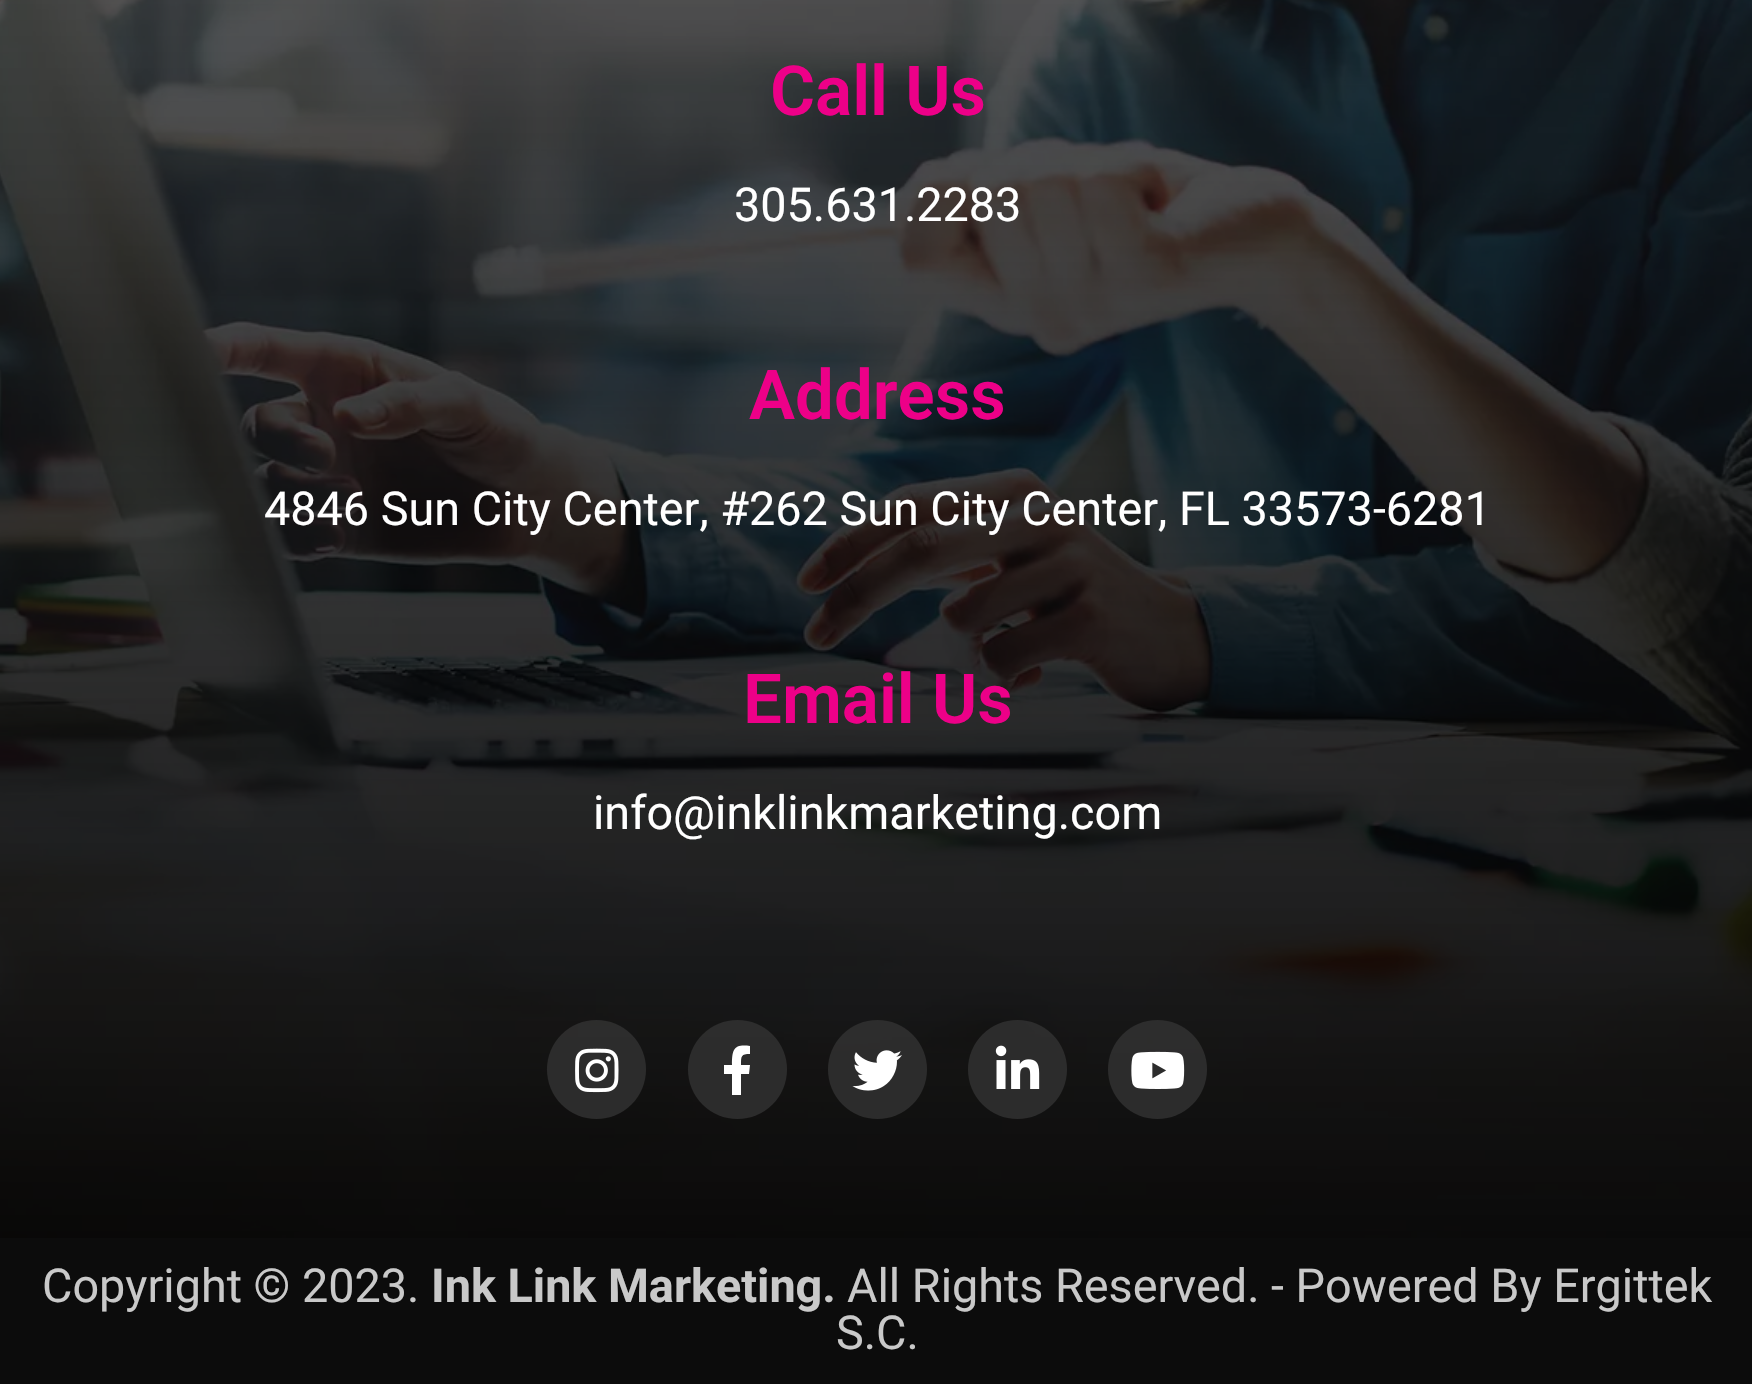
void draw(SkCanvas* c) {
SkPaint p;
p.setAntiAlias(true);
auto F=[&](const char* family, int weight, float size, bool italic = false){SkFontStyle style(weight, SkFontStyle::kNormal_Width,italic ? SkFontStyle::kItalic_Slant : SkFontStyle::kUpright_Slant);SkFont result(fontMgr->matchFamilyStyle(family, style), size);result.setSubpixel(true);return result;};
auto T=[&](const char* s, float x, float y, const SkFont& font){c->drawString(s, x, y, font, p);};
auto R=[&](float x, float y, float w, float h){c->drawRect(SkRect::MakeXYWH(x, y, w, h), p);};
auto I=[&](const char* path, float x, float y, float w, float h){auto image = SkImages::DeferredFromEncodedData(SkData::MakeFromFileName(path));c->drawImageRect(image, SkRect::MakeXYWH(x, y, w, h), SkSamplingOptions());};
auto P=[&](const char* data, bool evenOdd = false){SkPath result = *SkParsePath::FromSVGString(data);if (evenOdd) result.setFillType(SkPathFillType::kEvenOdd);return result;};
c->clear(0xffffffff);
I("1.png",0,0,1752,1238);
auto f1 = F("Roboto",600,69);
p.setColor(0xffed0088);
T("Call Us",770,115,f1);
auto f2 = F("Roboto",400,46.75);
p.setColor(0xffffffff);
T("305.631.2283",734,221,f2);
p.setColor(0xffed0088);
T("Address",749,419,f1);
p.setColor(0xffffffff);
T("4846 Sun City Center, #262 Sun City Center, FL 33573-6281",264,525,f2);
p.setColor(0xffed0088);
T("Email Us",743,723,f1);
p.setColor(0xffffffff);
T("info@inklinkmarketing.com",593,829,f2);
p.setColor(0xd9303030);
c->drawCircle(596.5,1069.5,49.5,p);
I("2.png",575,1048,44,45);
c->drawCircle(737.5,1069.5,49.5,p);
p.setColor(0xffffffff);
c->drawPath(P("M749 1074h-8v21h-9v-21h-8v-9h8c0-16 2-21 18-19v8c-9 0-9 2-9 11h9z"),p);
p.setColor(0xd9303030);
c->drawCircle(877.5,1069.5,49.5,p);
I("3.png",852,1050,50,41);
c->drawCircle(1017.5,1069.5,49.5,p);
I("4.png",995,1045,45,44);
c->drawCircle(1157.5,1069.5,49.5,p);
I("5.png",1131,1051,54,38);
p.setColor(0xff0c0c0c);
R(0,1238,1752,146);
p.setColor(0xffc9c9c9);
T("Copyright © 2023.",42,1302,f2);
auto f3 = F("Roboto",700,46.75);
T("Ink Link Marketing.",431,1302,f3);
T("All Rights Reserved. - Powered By Ergittek",847,1302,f2);
T("S.C.",836,1349,f2);
}
